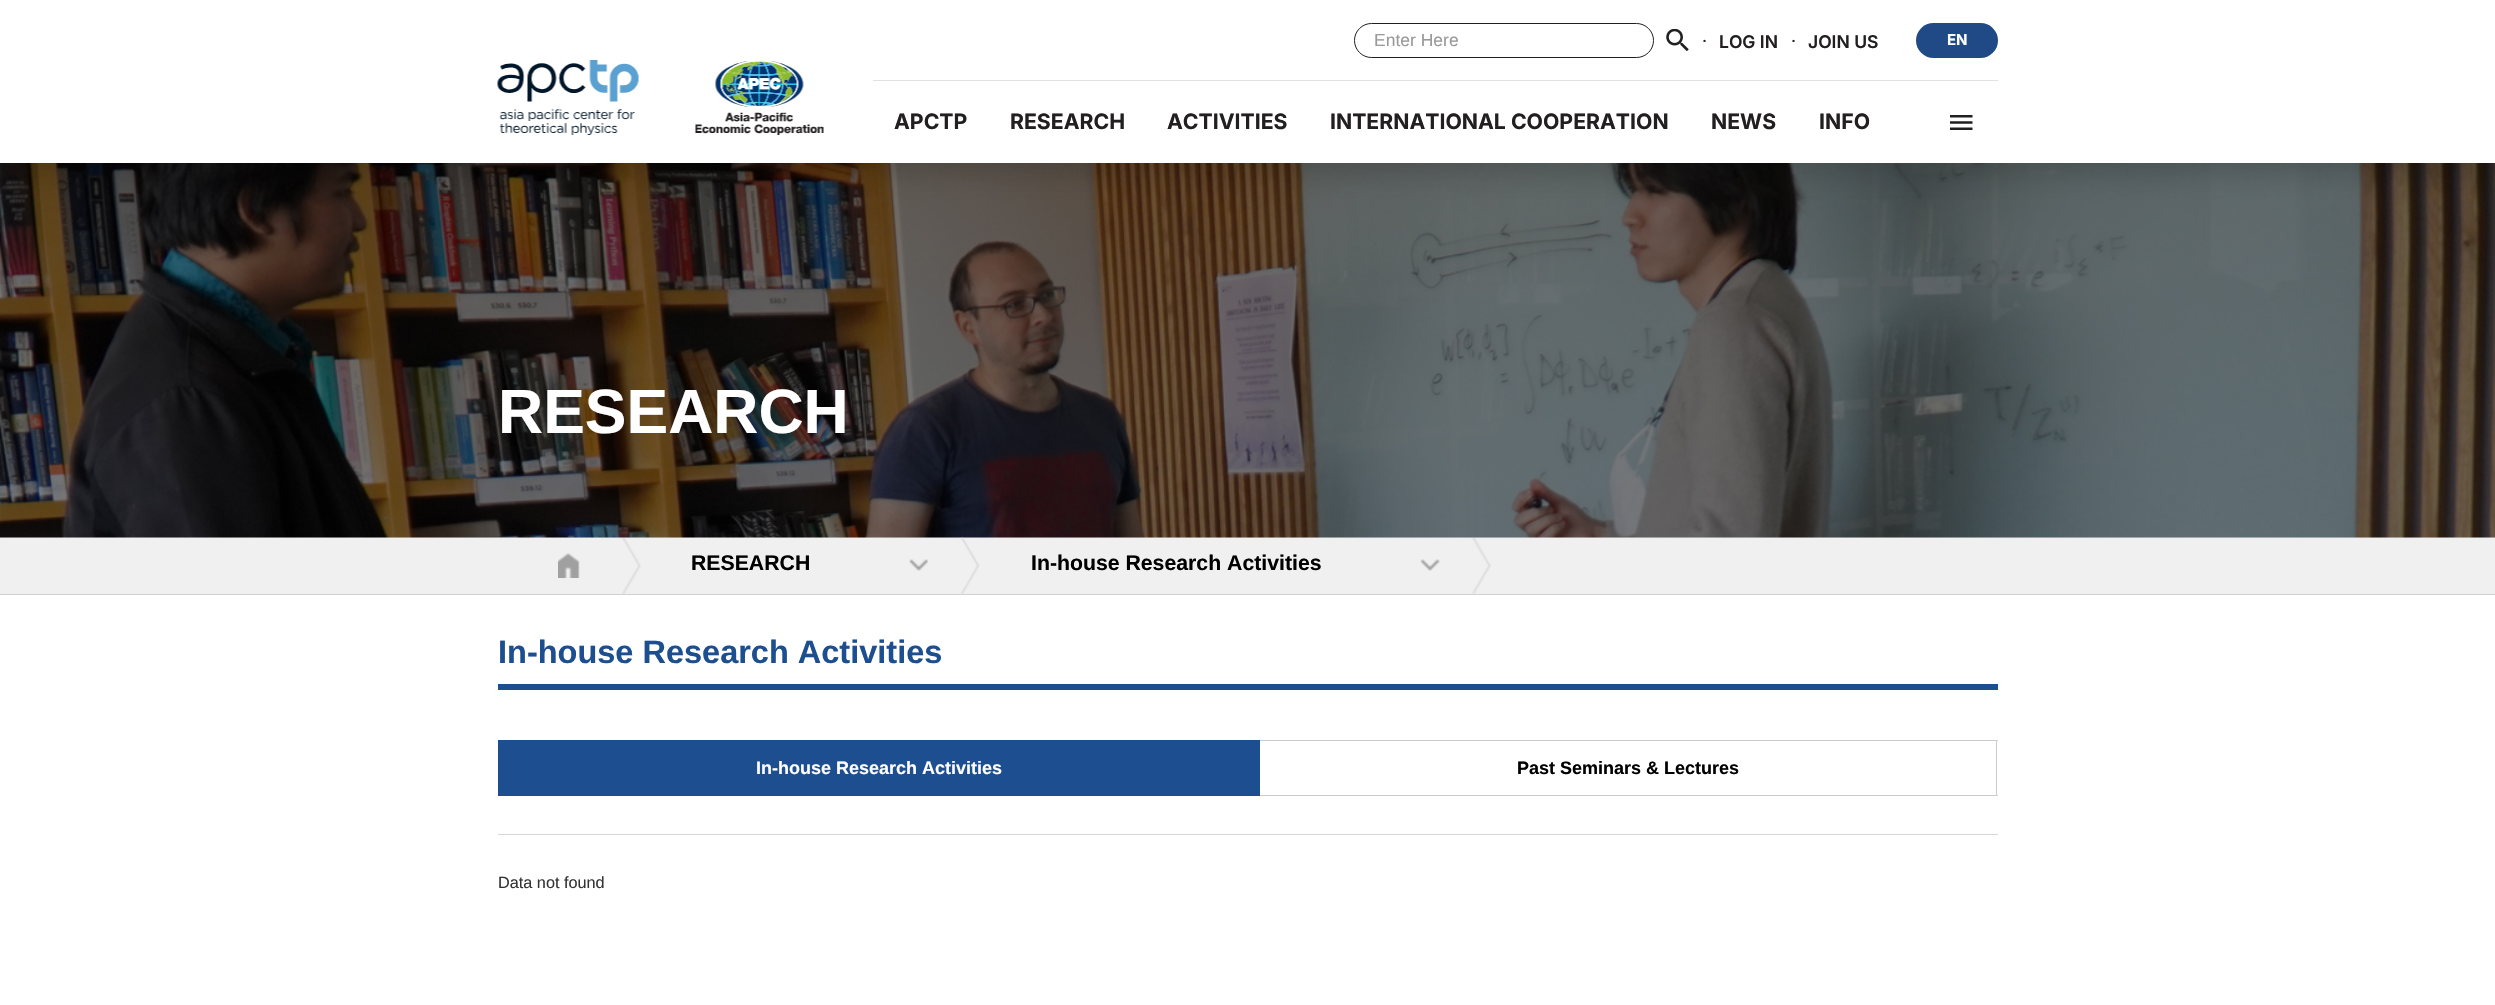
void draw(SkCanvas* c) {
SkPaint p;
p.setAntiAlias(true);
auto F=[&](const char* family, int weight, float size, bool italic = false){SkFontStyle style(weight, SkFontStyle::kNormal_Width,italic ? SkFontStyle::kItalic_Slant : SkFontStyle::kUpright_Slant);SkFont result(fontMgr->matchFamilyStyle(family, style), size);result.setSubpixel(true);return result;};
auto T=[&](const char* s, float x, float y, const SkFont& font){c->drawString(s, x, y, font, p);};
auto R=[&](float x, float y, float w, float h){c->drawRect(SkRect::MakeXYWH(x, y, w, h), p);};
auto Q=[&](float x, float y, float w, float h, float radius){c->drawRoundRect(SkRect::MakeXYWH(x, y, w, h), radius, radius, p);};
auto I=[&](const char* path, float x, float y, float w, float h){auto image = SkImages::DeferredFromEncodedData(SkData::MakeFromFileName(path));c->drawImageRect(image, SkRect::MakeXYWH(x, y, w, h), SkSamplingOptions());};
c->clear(0xffffffff);
p.setColor(0xffe8e9eb);
R(0,537,2495,1);
I("5.png",0,163,2495,375);
p.setColor(0x29000000);
p.setMaskFilter(SkMaskFilter::MakeBlur(kNormal_SkBlurStyle, 12.5));
c->drawRect(SkRect::MakeXYWH(0,13,2495,162),p);
p.setMaskFilter(nullptr);
p.setColor(0xffffffff);
R(0,0,2495,163);
I("1.png",497,60,142,75);
I("2.png",695,61,129,74);
p.setColor(0xffe1e1e1);
R(873,80,1125,1);
p.setStroke(true);
p.setStrokeWidth(1);
p.setColor(0xff1f1f1f);
c->drawRoundRect(SkRect::MakeXYWH(1354.5,23.5,299,34),17,17,p);
auto f1 = F("Liberation Sans",400,17.5);
p.setStroke(false);
p.setColor(0xff999999);
T("Enter Here",1374,46,f1);
I("3.png",1666,29,23,22);
auto f2 = F("Inter",400,17.5);
p.setColor(0xff221f20);
T("·",1702,47,f2);
auto f3 = F("Inter",600,17.5);
T("LOG IN",1719,48,f3);
T("·",1791,47,f2);
T("JOIN US",1808,48,f3);
p.setColor(0xff1f4a85);
Q(1916,23,82,35,17.5);
auto f4 = F("Inter",700,15);
p.setColor(0xffffffff);
T("EN",1947,45,f4);
auto f5 = F("Inter",700,21.25);
p.setColor(0xff221f20);
T("APCTP",894,129,f5);
T("RESEARCH",1010,129,f5);
T("ACTIVITIES",1167,129,f5);
T("INTERNATIONAL COOPERATION",1330,129,f5);
T("NEWS",1711,129,f5);
T("INFO",1819,129,f5);
I("4.png",1950,115,23,15);
auto f6 = F("Liberation Sans",700,62.5);
p.setColor(0xffffffff);
T("RESEARCH",498,433,f6);
p.setColor(0xfff1f0f0);
R(0,538,2495,56);
p.setColor(0xffd1d1d1);
R(0,594,2495,1);
I("6.png",622,538,19,56);
I("7.png",558,553,22,25);
I("8.png",961,537,18,57);
auto f7 = F("Liberation Sans",700,21.25);
p.setColor(0xff000000);
T("RESEARCH",691,570,f7);
I("9.png",909,559,19,12);
I("10.png",1472,538,19,56);
T("In-house Research Activities",1031,570,f7);
I("11.png",1420,559,20,12);
auto f8 = F("Liberation Sans",700,32.5);
p.setColor(0xff1d4e8f);
T("In-house Research Activities",498,663,f8);
R(498,684,1500,6);
p.setStroke(true);
c->drawRect(SkRect::MakeXYWH(498.5,740.5,761,55),p);
p.setStroke(false);
R(499,741,760,54);
auto f9 = F("Liberation Sans",700,18);
p.setColor(0xffffffff);
T("In-house Research Activities",756,774,f9);
p.setColor(0xffcccccc);
R(1260,740,738,1);
R(1996,740,1,56);
R(1260,795,738,1);
p.setColor(0xff000000);
T("Past Seminars & Lectures",1517,774,f9);
p.setColor(0xffd7d7d7);
R(498,834,1500,1);
auto f10 = F("Liberation Sans",400,16.25);
p.setColor(0xff333333);
T("Data not found",498,888,f10);
}
